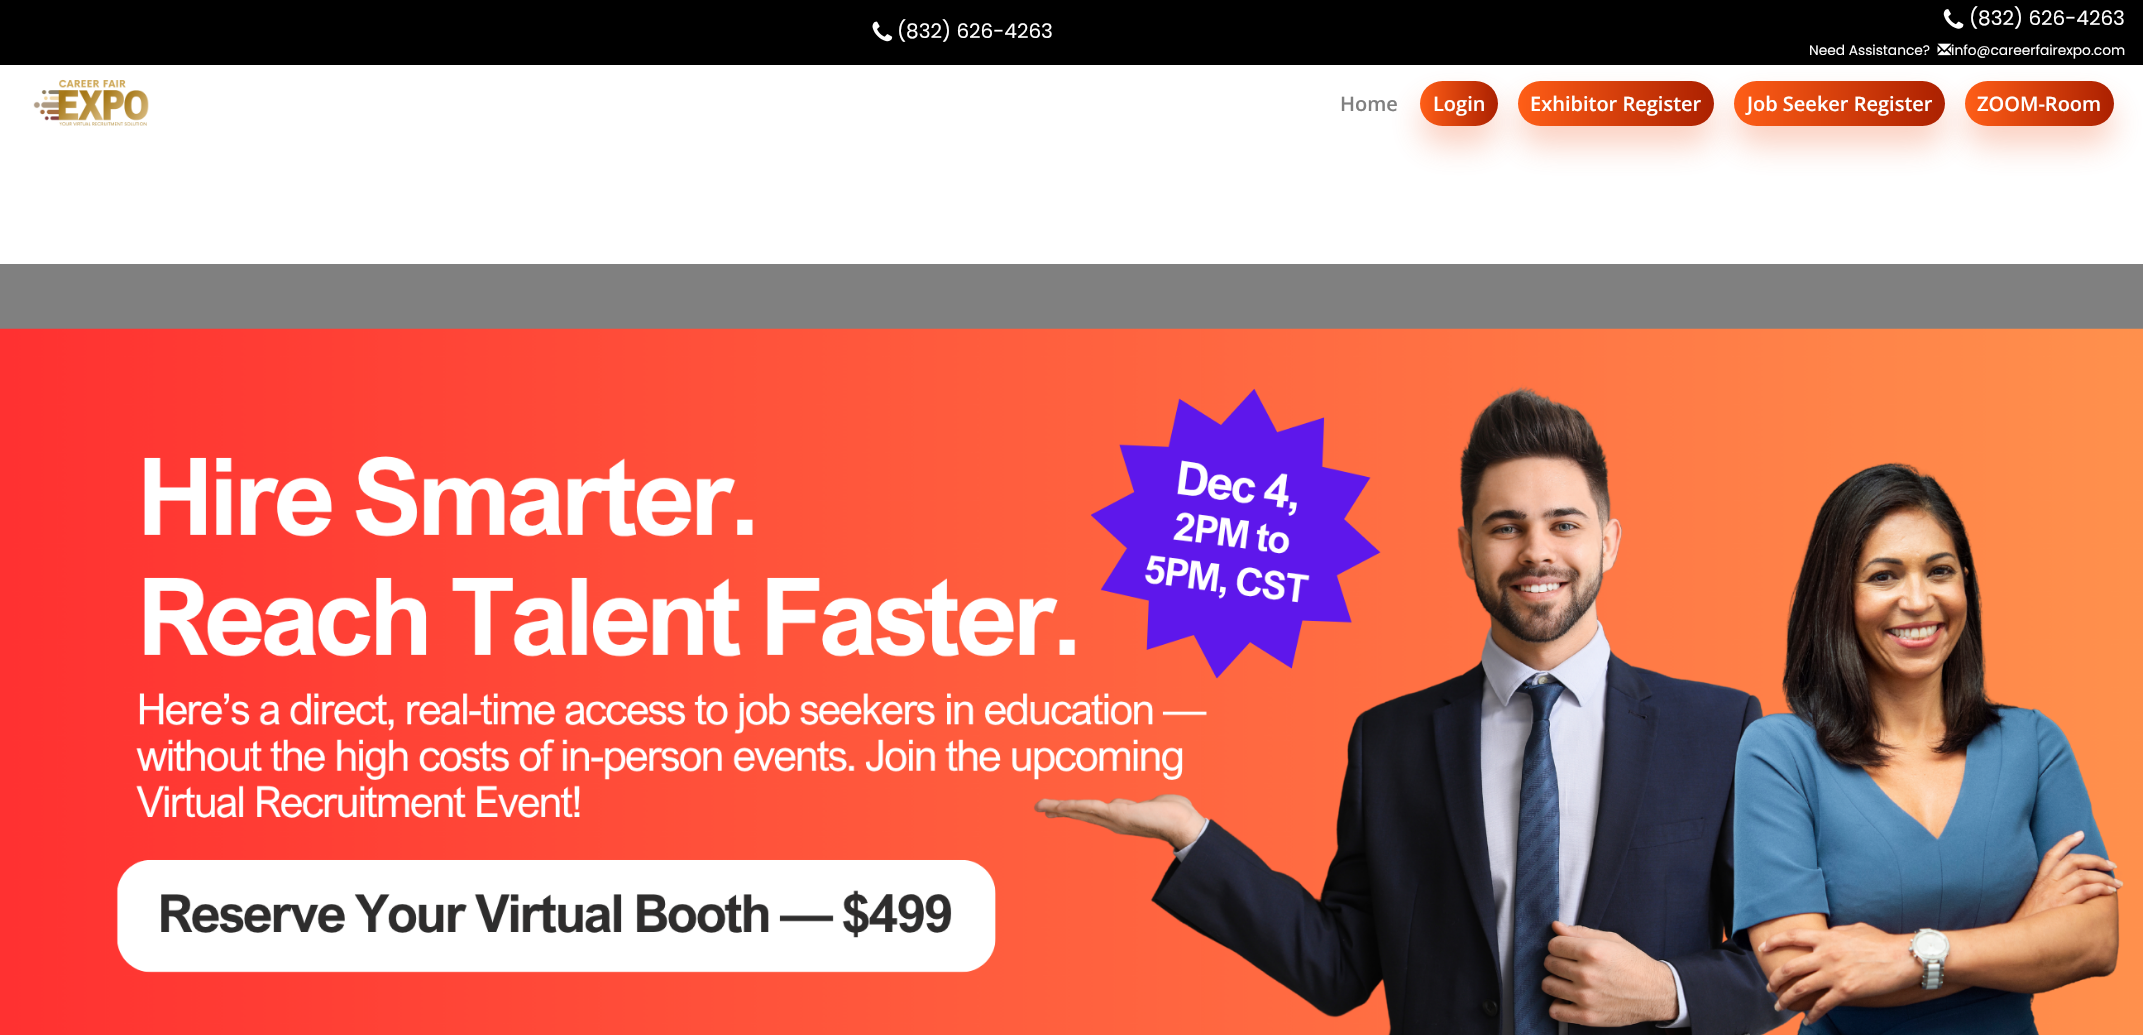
void draw(SkCanvas* c) {
SkPaint p;
p.setAntiAlias(true);
auto F=[&](const char* family, int weight, float size, bool italic = false){SkFontStyle style(weight, SkFontStyle::kNormal_Width,italic ? SkFontStyle::kItalic_Slant : SkFontStyle::kUpright_Slant);SkFont result(fontMgr->matchFamilyStyle(family, style), size);result.setSubpixel(true);return result;};
auto T=[&](const char* s, float x, float y, const SkFont& font){c->drawString(s, x, y, font, p);};
auto R=[&](float x, float y, float w, float h){c->drawRect(SkRect::MakeXYWH(x, y, w, h), p);};
auto Q=[&](float x, float y, float w, float h, float radius){c->drawRoundRect(SkRect::MakeXYWH(x, y, w, h), radius, radius, p);};
auto I=[&](const char* path, float x, float y, float w, float h){auto image = SkImages::DeferredFromEncodedData(SkData::MakeFromFileName(path));c->drawImageRect(image, SkRect::MakeXYWH(x, y, w, h), SkSamplingOptions());};
c->clear(0xffffffff);
p.setColor(0xff000000);
R(0,0,2143,65);
I("1.png",872,21,21,21);
auto f1 = F("Poppins",400,20);
p.setColor(0xffffffff);
T("(832) 626-4263",897,38,f1);
I("2.png",1943,9,21,20);
T("(832) 626-4263",1969,25,f1);
auto f2 = F("Poppins",400,13.75);
T("Need Assistance?",1809,55,f2);
T("info@careerfairexpo.com",1951,55,f2);
I("3.png",1937,43,15,13);
I("4.png",33,79,116,47);
auto f3 = F("Open Sans",600,20);
p.setColor(0xff808080);
T("Home",1340,111,f3);
p.setColor(0x4df36531);
p.setMaskFilter(SkMaskFilter::MakeBlur(kNormal_SkBlurStyle, 15.5));
c->drawRoundRect(SkRect::MakeXYWH(1420,100,78,45),22.5,22.5,p);
p.setMaskFilter(nullptr);
{
const SkColor colors[] = {0xffff5e17,0xffab2000};
const float stops[] = {0,1};
const SkPoint ends[] = {{1420,104}, {1498,104}};
p.setShader(SkGradientShader::MakeLinear(ends, colors, stops, 2, SkTileMode::kClamp));
p.setAlpha(255);
}
Q(1420,81,78,45,22.5);
p.setShader(nullptr);
p.setColor(0xffffffff);
T("Login",1433,111,f3);
p.setColor(0x4df36531);
p.setMaskFilter(SkMaskFilter::MakeBlur(kNormal_SkBlurStyle, 15.5));
c->drawRoundRect(SkRect::MakeXYWH(1518,100,196,45),22.5,22.5,p);
p.setMaskFilter(nullptr);
{
const SkColor colors[] = {0xffff5e17,0xffab2000};
const float stops[] = {0,1};
const SkPoint ends[] = {{1518,104}, {1714,104}};
p.setShader(SkGradientShader::MakeLinear(ends, colors, stops, 2, SkTileMode::kClamp));
p.setAlpha(255);
}
Q(1518,81,196,45,22.5);
p.setShader(nullptr);
p.setColor(0xffffffff);
T("Exhibitor Register",1530,111,f3);
p.setColor(0x4df36531);
p.setMaskFilter(SkMaskFilter::MakeBlur(kNormal_SkBlurStyle, 15.5));
c->drawRoundRect(SkRect::MakeXYWH(1734,100,211,45),22.5,22.5,p);
p.setMaskFilter(nullptr);
{
const SkColor colors[] = {0xffff5e17,0xffab2000};
const float stops[] = {0,1};
const SkPoint ends[] = {{1734,104}, {1945,104}};
p.setShader(SkGradientShader::MakeLinear(ends, colors, stops, 2, SkTileMode::kClamp));
p.setAlpha(255);
}
Q(1734,81,211,45,22.5);
p.setShader(nullptr);
p.setColor(0xffffffff);
T("Job Seeker Register",1747,111,f3);
p.setColor(0x4df36531);
p.setMaskFilter(SkMaskFilter::MakeBlur(kNormal_SkBlurStyle, 15.5));
c->drawRoundRect(SkRect::MakeXYWH(1965,100,149,45),22.5,22.5,p);
p.setMaskFilter(nullptr);
{
const SkColor colors[] = {0xffff5e17,0xffab2000};
const float stops[] = {0,1};
const SkPoint ends[] = {{1965,104}, {2114,104}};
p.setShader(SkGradientShader::MakeLinear(ends, colors, stops, 2, SkTileMode::kClamp));
p.setAlpha(255);
}
Q(1965,81,149,45,22.5);
p.setShader(nullptr);
p.setColor(0xffffffff);
T("ZOOM-Room",1977,111,f3);
p.setColor(0xff808080);
R(0,264,2143,65);
I("5.png",0,328,2143,707);
}
